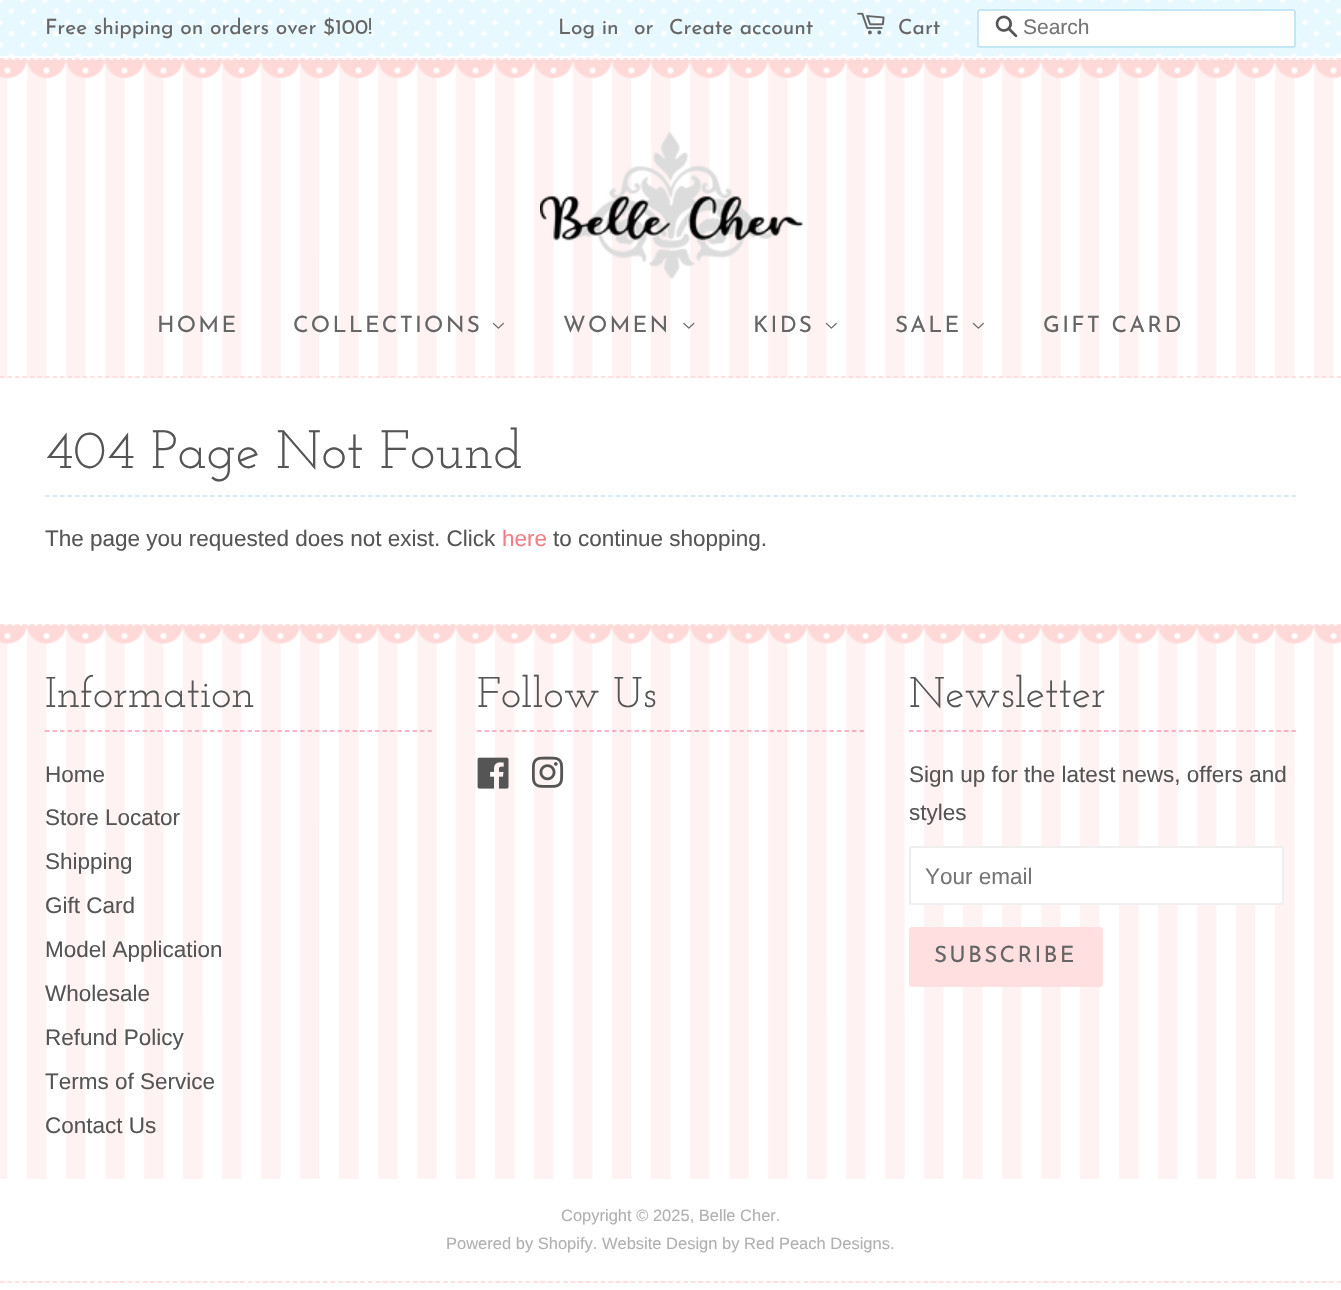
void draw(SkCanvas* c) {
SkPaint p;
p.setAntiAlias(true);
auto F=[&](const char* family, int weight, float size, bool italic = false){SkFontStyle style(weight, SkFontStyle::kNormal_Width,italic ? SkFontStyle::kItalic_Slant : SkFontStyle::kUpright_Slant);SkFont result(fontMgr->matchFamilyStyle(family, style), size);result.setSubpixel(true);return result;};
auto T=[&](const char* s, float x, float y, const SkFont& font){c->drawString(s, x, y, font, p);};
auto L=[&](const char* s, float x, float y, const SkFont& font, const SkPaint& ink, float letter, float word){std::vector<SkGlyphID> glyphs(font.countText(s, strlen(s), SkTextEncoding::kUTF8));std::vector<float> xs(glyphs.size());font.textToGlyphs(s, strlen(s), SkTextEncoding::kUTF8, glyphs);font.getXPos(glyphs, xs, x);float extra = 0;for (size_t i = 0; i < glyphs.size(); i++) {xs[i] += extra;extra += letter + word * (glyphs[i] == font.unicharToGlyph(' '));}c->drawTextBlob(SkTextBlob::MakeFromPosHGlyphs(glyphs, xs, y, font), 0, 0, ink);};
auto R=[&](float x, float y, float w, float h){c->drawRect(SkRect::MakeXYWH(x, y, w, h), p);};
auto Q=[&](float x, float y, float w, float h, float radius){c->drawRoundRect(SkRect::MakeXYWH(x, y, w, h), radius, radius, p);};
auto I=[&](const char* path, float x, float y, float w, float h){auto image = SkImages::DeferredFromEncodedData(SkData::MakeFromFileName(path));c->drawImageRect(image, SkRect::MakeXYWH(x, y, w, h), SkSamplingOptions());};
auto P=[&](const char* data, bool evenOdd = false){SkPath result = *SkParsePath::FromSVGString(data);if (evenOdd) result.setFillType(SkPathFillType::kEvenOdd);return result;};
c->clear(0xffffffff);
I("1.png",0,0,1341,56);
auto f1 = F("Josefin Sans",100,21);
p.setColor(0xff666666);
T("Free shipping on orders over $100!",45,34,f1);
T("Log in",558,34,f1);
T("or",634,34,f1);
T("Create account",669,34,f1);
I("2.png",857,12,28,23);
T("Cart",898,34,f1);
p.setColor(0xffffffff);
c->drawRoundRect(SkRect::MakeXYWH(978,10,317,37),2,2,p);
p.setStroke(true);
p.setStrokeWidth(2);
p.setColor(0xffc4e6f5);
c->drawRoundRect(SkRect::MakeXYWH(978,10,317,37),2,2,p);
I("3.png",995,15,23,23);
auto f2 = F("Liberation Sans",400,21);
p.setStroke(false);
p.setColor(0xff757575);
T("Search",1023,34,f2);
I("4.png",0,60,1341,318);
p.setStroke(true);
p.setStrokeWidth(1.5);
p.setColor(0xffffd8d8);
p.setPathEffect(SkDashPathEffect::Make({{4.5f,3.01f}}, 0));
c->drawPath(P("M0 59h1341"),p);
p.setPathEffect(nullptr);
p.setPathEffect(SkDashPathEffect::Make({{4.5f,3.01f}}, 0));
c->drawPath(P("M0 377h1341"),p);
p.setPathEffect(nullptr);
I("5.png",540,132,263,147);
auto f3 = F("Josefin Sans",100,22.5);
p.setStroke(false);
p.setColor(0xff666666);
L("HOME",157,332,f3,p,2.25,0);
L("COLLECTIONS",293,332,f3,p,2.25,0);
I("6.png",492,322,12,7);
L("WOMEN",563,332,f3,p,2.25,0);
I("7.png",683,322,12,7);
L("KIDS",753,332,f3,p,2.25,0);
I("8.png",825,322,12,7);
L("SALE",895,332,f3,p,2.25,0);
I("9.png",972,322,12,7);
L("GIFT CARD",1043,332,f3,p,2.25,0);
p.setStroke(true);
p.setColor(0xffc5e6f4);
p.setPathEffect(SkDashPathEffect::Make({{4.5f,3.01f}}, 0));
c->drawPath(P("M45 496h1251"),p);
p.setPathEffect(nullptr);
auto f4 = F("Josefin Slab",100,54);
p.setStroke(false);
p.setColor(0xff555555);
T("404 Page Not Found",45,468,f4);
auto f5 = F("Liberation Sans",400,22.5);
T("The page you requested does not exist. Click",45,546,f5);
p.setColor(0xfff47c85);
T("here",502,546,f5);
p.setColor(0xff555555);
T("to continue shopping.",553,546,f5);
I("10.png",0,625,1341,658);
p.setStroke(true);
p.setColor(0xffffd8d8);
p.setPathEffect(SkDashPathEffect::Make({{4.5f,3.01f}}, 0));
c->drawPath(P("M0 625h1341"),p);
p.setPathEffect(nullptr);
p.setPathEffect(SkDashPathEffect::Make({{4.5f,3.01f}}, 0));
c->drawPath(P("M0 1282h1341"),p);
p.setPathEffect(nullptr);
p.setColor(0xfffd9bb4);
p.setPathEffect(SkDashPathEffect::Make({{4.5f,3}}, 0));
c->drawPath(P("M45 731h387"),p);
p.setPathEffect(nullptr);
auto f6 = F("Josefin Slab",100,43);
p.setStroke(false);
p.setColor(0xff555555);
T("Information",45,707,f6);
T("Home",45,782,f5);
T("Store Locator",45,825,f5);
T("Shipping",45,869,f5);
T("Gift Card",45,913,f5);
T("Model Application",45,957,f5);
T("Wholesale",45,1001,f5);
T("Refund Policy",45,1045,f5);
T("Terms of Service",45,1089,f5);
T("Contact Us",45,1133,f5);
p.setStroke(true);
p.setColor(0xfffd9bb4);
p.setPathEffect(SkDashPathEffect::Make({{4.5f,3}}, 0));
c->drawPath(P("M477 731h387"),p);
p.setPathEffect(nullptr);
p.setStroke(false);
p.setColor(0xff555555);
T("Follow Us",477,707,f6);
I("11.png",477,757,32,32);
I("12.png",531,756,33,32);
p.setStroke(true);
p.setColor(0xfffd9bb4);
p.setPathEffect(SkDashPathEffect::Make({{4.5f,3}}, 0));
c->drawPath(P("M909 731h387"),p);
p.setPathEffect(nullptr);
p.setStroke(false);
p.setColor(0xff555555);
T("Newsletter",909,707,f6);
T("Sign up for the latest news, offers and",909,782,f5);
T("styles",909,820,f5);
p.setColor(0xffffffff);
c->drawRoundRect(SkRect::MakeXYWH(910,847,373,57),2,2,p);
p.setStroke(true);
p.setStrokeWidth(2);
p.setColor(0xffefefef);
c->drawRoundRect(SkRect::MakeXYWH(910,847,373,57),2,2,p);
p.setStroke(false);
p.setColor(0xff757575);
T("Your email",925,884,f5);
p.setColor(0xffffdfdf);
Q(909,927,194,60,3);
p.setColor(0xff666666);
L("SUBSCRIBE",934,962,f3,p,2.25,0);
p.setColor(0xffffffff);
R(0,1179,1334,102);
auto f7 = F("Liberation Sans",400,16.5);
p.setColor(0xffb0b0b0);
T("Copyright © 2025, Belle Cher.",561,1221,f7);
T("Powered by Shopify. Website Design by Red Peach Designs.",446,1249,f7);
}
